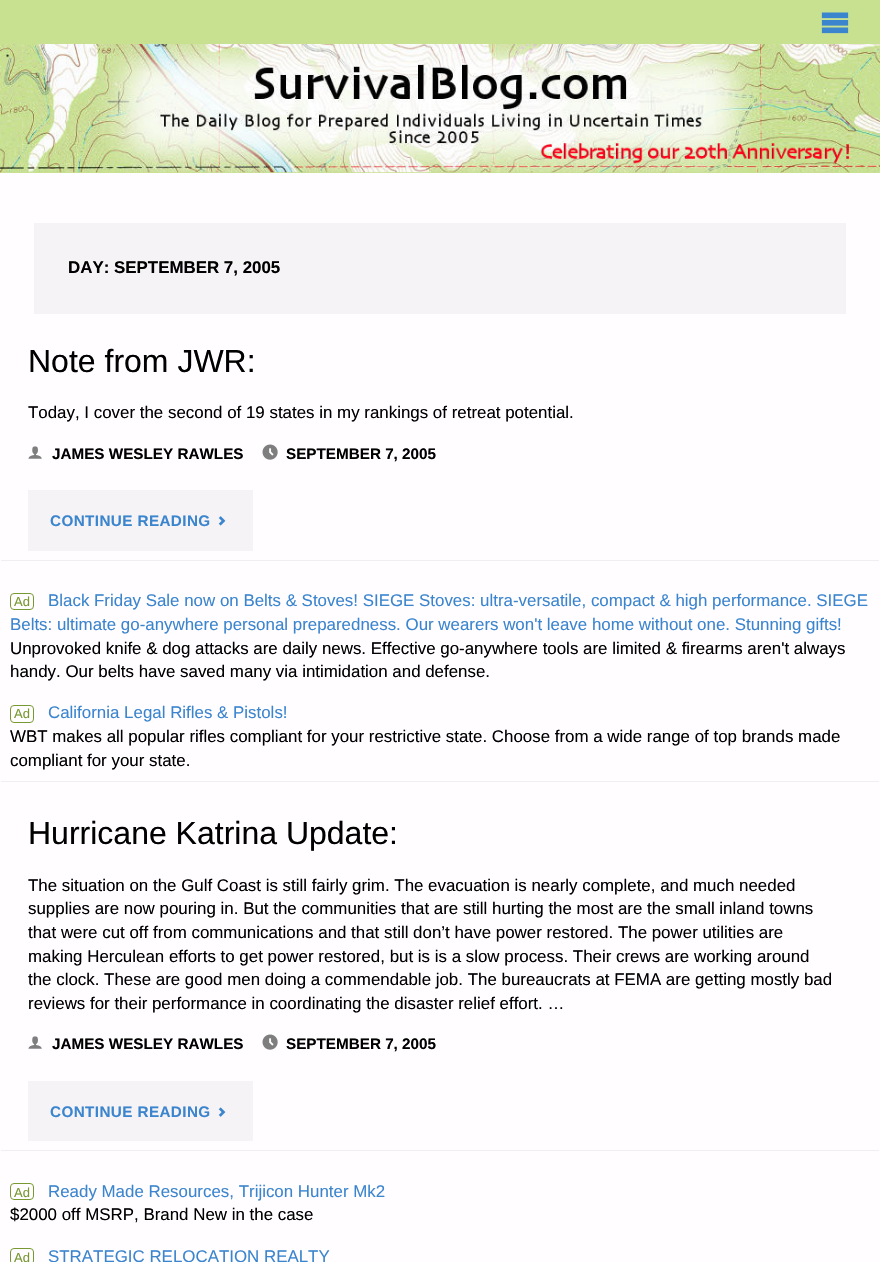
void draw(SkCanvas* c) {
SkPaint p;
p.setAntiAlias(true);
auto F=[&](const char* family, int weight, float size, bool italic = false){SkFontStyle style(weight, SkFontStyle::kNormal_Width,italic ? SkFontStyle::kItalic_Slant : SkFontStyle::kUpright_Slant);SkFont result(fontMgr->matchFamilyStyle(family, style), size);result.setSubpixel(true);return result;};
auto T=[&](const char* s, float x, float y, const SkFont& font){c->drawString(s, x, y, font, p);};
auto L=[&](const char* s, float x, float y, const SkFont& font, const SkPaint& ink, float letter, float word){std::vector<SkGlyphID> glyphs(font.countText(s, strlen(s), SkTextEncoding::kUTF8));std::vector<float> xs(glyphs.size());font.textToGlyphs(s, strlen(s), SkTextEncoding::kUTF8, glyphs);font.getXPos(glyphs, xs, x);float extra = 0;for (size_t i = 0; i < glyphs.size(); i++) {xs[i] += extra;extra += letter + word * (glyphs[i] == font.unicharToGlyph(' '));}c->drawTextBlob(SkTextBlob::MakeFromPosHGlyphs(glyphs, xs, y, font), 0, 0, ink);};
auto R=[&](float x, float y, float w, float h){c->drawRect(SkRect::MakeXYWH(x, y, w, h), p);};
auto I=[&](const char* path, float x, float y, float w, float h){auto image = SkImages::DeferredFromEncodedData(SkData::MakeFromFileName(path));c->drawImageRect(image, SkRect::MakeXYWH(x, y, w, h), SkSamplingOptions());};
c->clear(0xffc8e191);
I("1.png",821,12,28,22);
I("2.png",0,44,880,129);
p.setColor(0xfffffdff);
R(0,173,880,1089);
p.setColor(0xfff5f3f5);
R(34,223,812,91);
auto f1 = F("Liberation Sans",700,16.9);
p.setColor(0xff000000);
T("DAY: SEPTEMBER 7, 2005",68,273,f1);
auto f2 = F("Liberation Sans",400,32);
T("Note from JWR:",28,372,f2);
auto f3 = F("Liberation Sans",400,16.9);
T("Today, I cover the second of 19 states in my rankings of retreat potential.",28,418,f3);
I("3.png",28,446,14,13);
auto f4 = F("Liberation Sans",700,15.25);
T("JAMES WESLEY RAWLES",52,459,f4);
I("4.png",262,444,16,16);
T("SEPTEMBER 7, 2005",286,459,f4);
p.setColor(0xfff5f3f5);
R(28,490,225,61);
p.setColor(0xff3b85ce);
L("CONTINUE READING",50,526,f4,p,.4,0);
I("5.png",218,516,8,10);
p.setColor(0xfff0eef0);
R(1,560,878,1);
p.setStroke(true);
p.setStrokeWidth(1);
p.setColor(0xff789832);
c->drawRoundRect(SkRect::MakeXYWH(10.5,593.5,23,16),3.5,3.5,p);
auto f5 = F("Liberation Sans",400,13);
p.setStroke(false);
T("Ad",14,606,f5);
p.setColor(0xff3b85ce);
T("Black Friday Sale now on Belts & Stoves! SIEGE Stoves: ultra-versatile, compact & high performance. SIEGE",48,606,f3);
T("Belts: ultimate go-anywhere personal preparedness. Our wearers won't leave home without one. Stunning gifts!",10,630,f3);
p.setColor(0xff000000);
T("Unprovoked knife & dog attacks are daily news. Effective go-anywhere tools are limited & firearms aren't always",10,654,f3);
T("handy. Our belts have saved many via intimidation and defense.",10,677,f3);
p.setStroke(true);
p.setColor(0xff789832);
c->drawRoundRect(SkRect::MakeXYWH(10.5,705.5,23,17),3.5,3.5,p);
p.setStroke(false);
T("Ad",14,718,f5);
p.setColor(0xff3b85ce);
T("California Legal Rifles & Pistols!",48,718,f3);
p.setColor(0xff000000);
T("WBT makes all popular rifles compliant for your restrictive state. Choose from a wide range of top brands made",10,742,f3);
T("compliant for your state.",10,766,f3);
p.setColor(0xfff0eef0);
R(1,781,878,1);
p.setColor(0xff000000);
T("Hurricane Katrina Update:",28,844,f2);
T("The situation on the Gulf Coast is still fairly grim. The evacuation is nearly complete, and much needed",28,891,f3);
T("supplies are now pouring in. But the communities that are still hurting the most are the small inland towns",28,914,f3);
T("that were cut off from communications and that still don’t have power restored. The power utilities are",28,938,f3);
T("making Herculean efforts to get power restored, but is is a slow process. Their crews are working around",28,962,f3);
T("the clock. These are good men doing a commendable job. The bureaucrats at FEMA are getting mostly bad",28,985,f3);
T("reviews for their performance in coordinating the disaster relief effort. …",28,1009,f3);
I("3.png",28,1036,14,13);
T("JAMES WESLEY RAWLES",52,1049,f4);
I("4.png",262,1034,16,16);
T("SEPTEMBER 7, 2005",286,1049,f4);
p.setColor(0xfff5f3f5);
R(28,1081,225,60);
p.setColor(0xff3b85ce);
L("CONTINUE READING",50,1117,f4,p,.4,0);
I("6.png",218,1107,8,10);
p.setColor(0xfff0eef0);
R(1,1150,878,1);
p.setStroke(true);
p.setColor(0xff789832);
c->drawRoundRect(SkRect::MakeXYWH(10.5,1183.5,23,16),3.5,3.5,p);
p.setStroke(false);
T("Ad",14,1197,f5);
p.setColor(0xff3b85ce);
T("Ready Made Resources, Trijicon Hunter Mk2",48,1197,f3);
p.setColor(0xff000000);
T("$2000 off MSRP, Brand New in the case",10,1220,f3);
p.setStroke(true);
p.setColor(0xff789832);
c->drawRoundRect(SkRect::MakeXYWH(10.5,1248.5,23,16),3.5,3.5,p);
p.setStroke(false);
T("Ad",14,1262,f5);
p.setColor(0xff3b85ce);
T("STRATEGIC RELOCATION REALTY",48,1262,f3);
}
